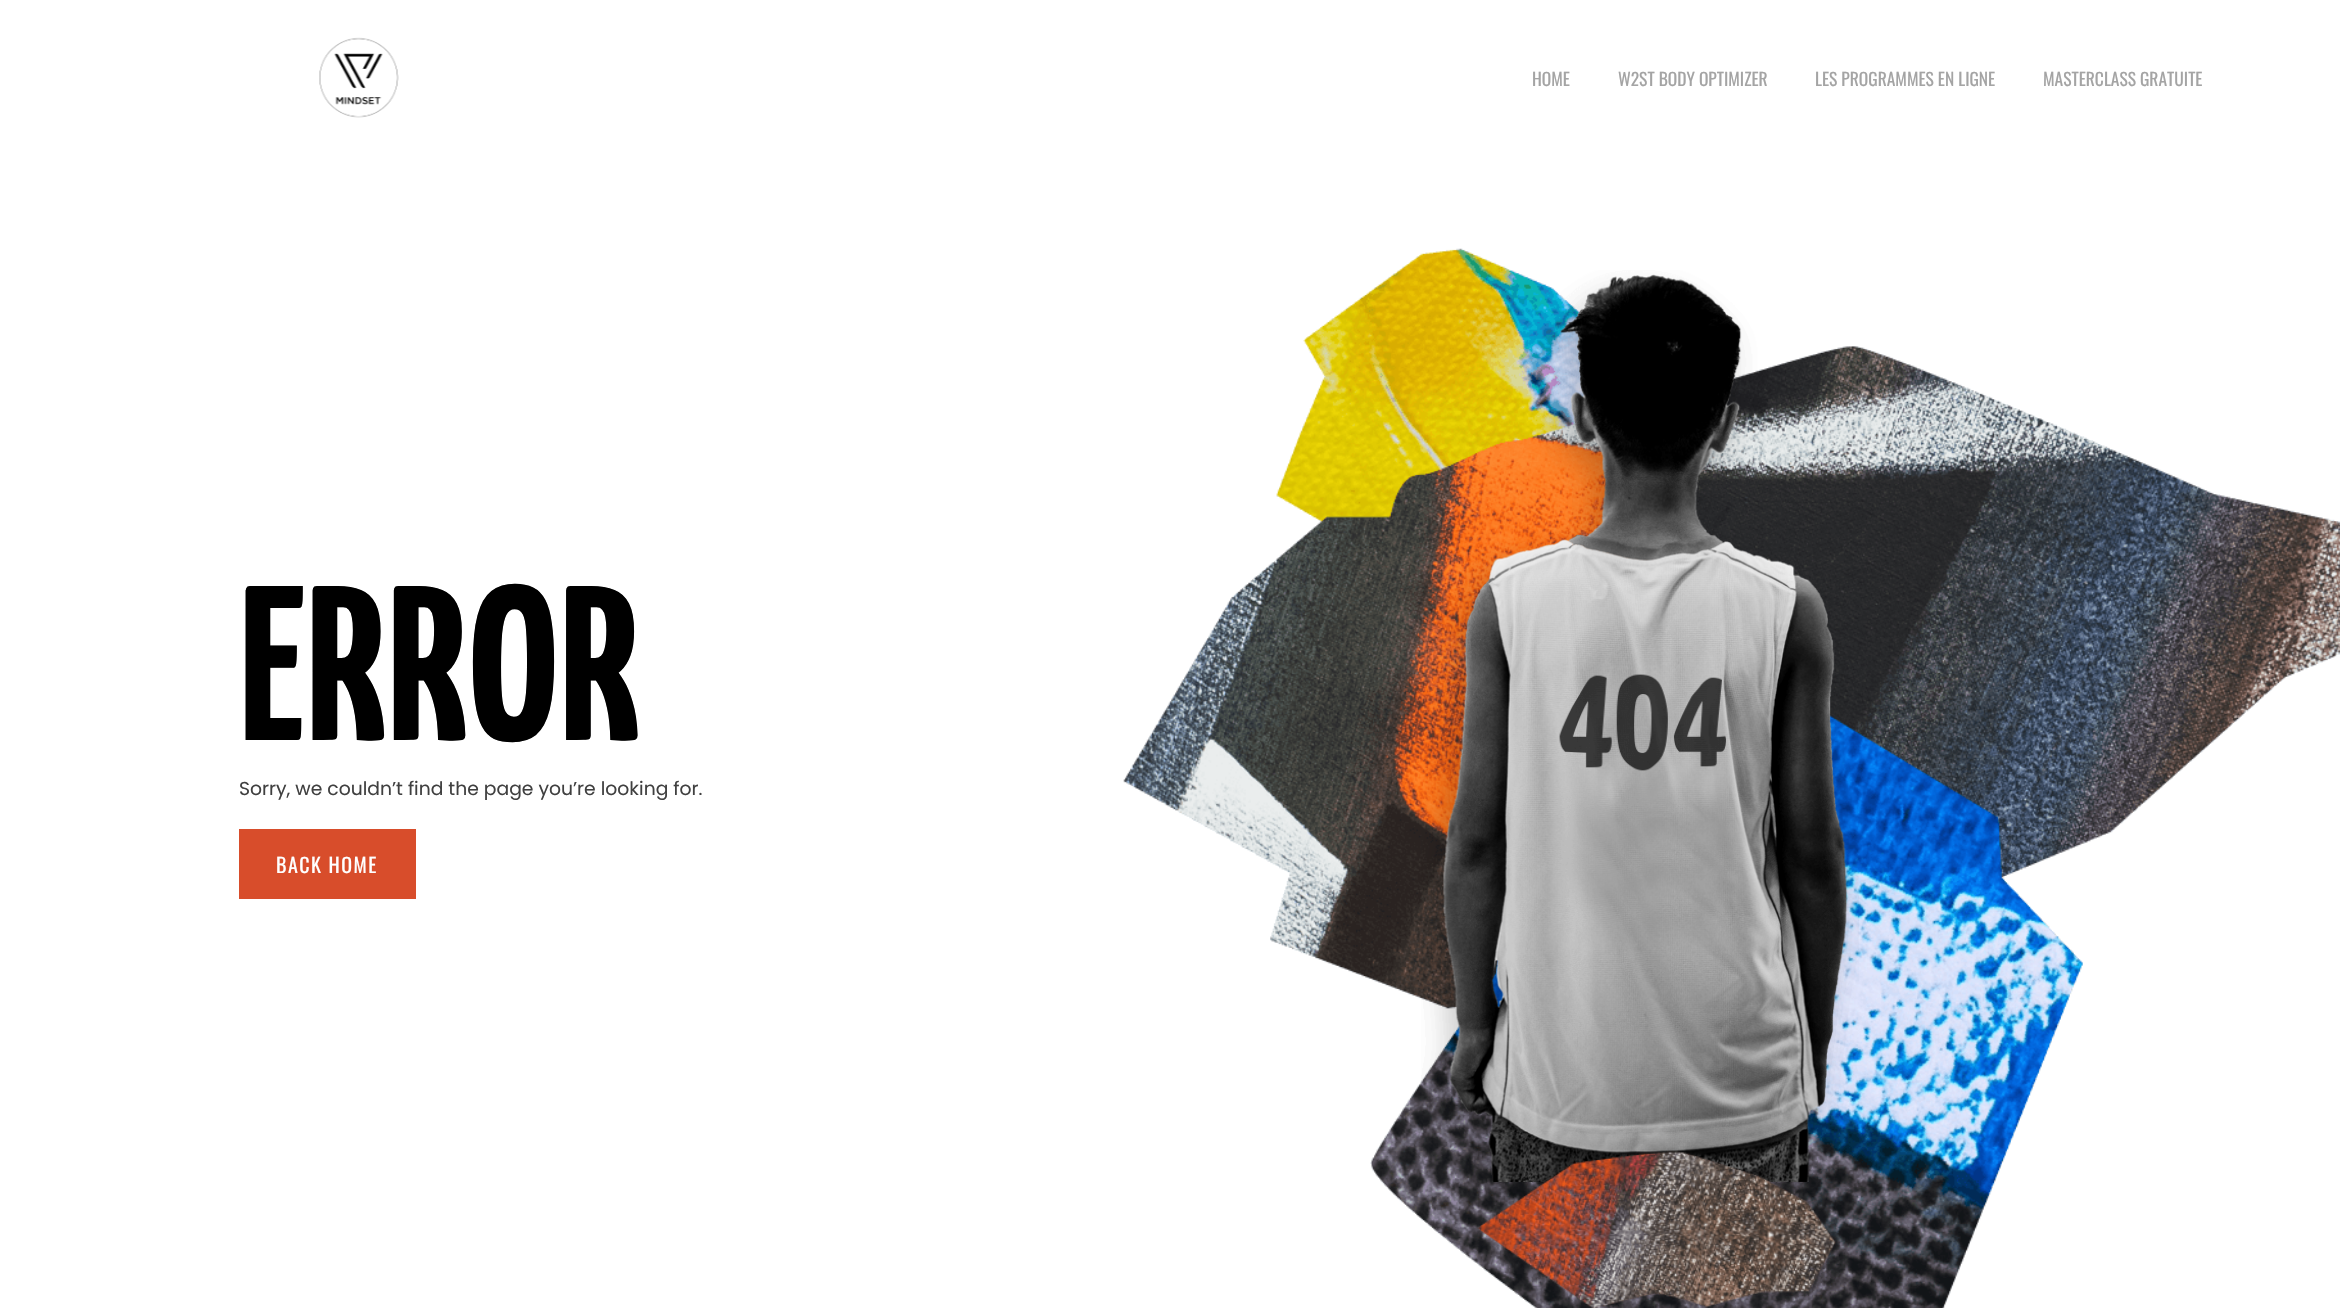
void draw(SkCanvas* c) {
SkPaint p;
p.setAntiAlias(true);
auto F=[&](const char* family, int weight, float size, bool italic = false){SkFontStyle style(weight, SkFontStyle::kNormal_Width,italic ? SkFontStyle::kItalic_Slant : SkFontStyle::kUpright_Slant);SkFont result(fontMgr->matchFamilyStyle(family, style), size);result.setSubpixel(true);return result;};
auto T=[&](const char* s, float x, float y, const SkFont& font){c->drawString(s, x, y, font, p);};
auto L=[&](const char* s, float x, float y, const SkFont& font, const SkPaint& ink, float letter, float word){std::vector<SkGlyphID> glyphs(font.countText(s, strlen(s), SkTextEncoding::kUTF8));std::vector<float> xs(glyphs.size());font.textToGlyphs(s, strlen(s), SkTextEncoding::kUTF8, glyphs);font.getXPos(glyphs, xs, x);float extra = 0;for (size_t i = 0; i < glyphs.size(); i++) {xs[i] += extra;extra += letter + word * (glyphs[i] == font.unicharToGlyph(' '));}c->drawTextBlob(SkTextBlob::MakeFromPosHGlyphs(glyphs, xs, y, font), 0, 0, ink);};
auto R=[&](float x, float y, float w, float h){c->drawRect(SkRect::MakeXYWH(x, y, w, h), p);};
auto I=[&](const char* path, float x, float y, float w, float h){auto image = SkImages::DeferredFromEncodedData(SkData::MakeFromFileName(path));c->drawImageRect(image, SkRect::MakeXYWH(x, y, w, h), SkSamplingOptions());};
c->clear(0xffffffff);
I("1.png",319,37,80,81);
auto f1 = F("Oswald",400,17.5);
p.setColor(0xffa4a4a4);
T("HOME",1532,86,f1);
T("W2ST BODY OPTIMIZER",1618,86,f1);
T("LES PROGRAMMES EN LIGNE",1815,86,f1);
T("MASTERCLASS GRATUITE",2043,86,f1);
auto f2 = F("Yanone Kaffeesatz",700,220);
p.setColor(0xff000000);
L("ERROR",239,740,f2,p,1,0);
auto f3 = F("Poppins",400,18.75);
p.setColor(0xff404040);
T("Sorry, we couldn’t find the page you’re looking for.",239,795,f3);
p.setColor(0xffd84d2b);
R(239,829,177,70);
auto f4 = F("Oswald",400,20);
p.setColor(0xffffffff);
L("BACK HOME",276,873,f4,p,1.5,0);
I("4.png",1123,248,1217,1060);
I("2.png",1421,270,438,943);
I("3.png",1477,1151,359,157);
}
